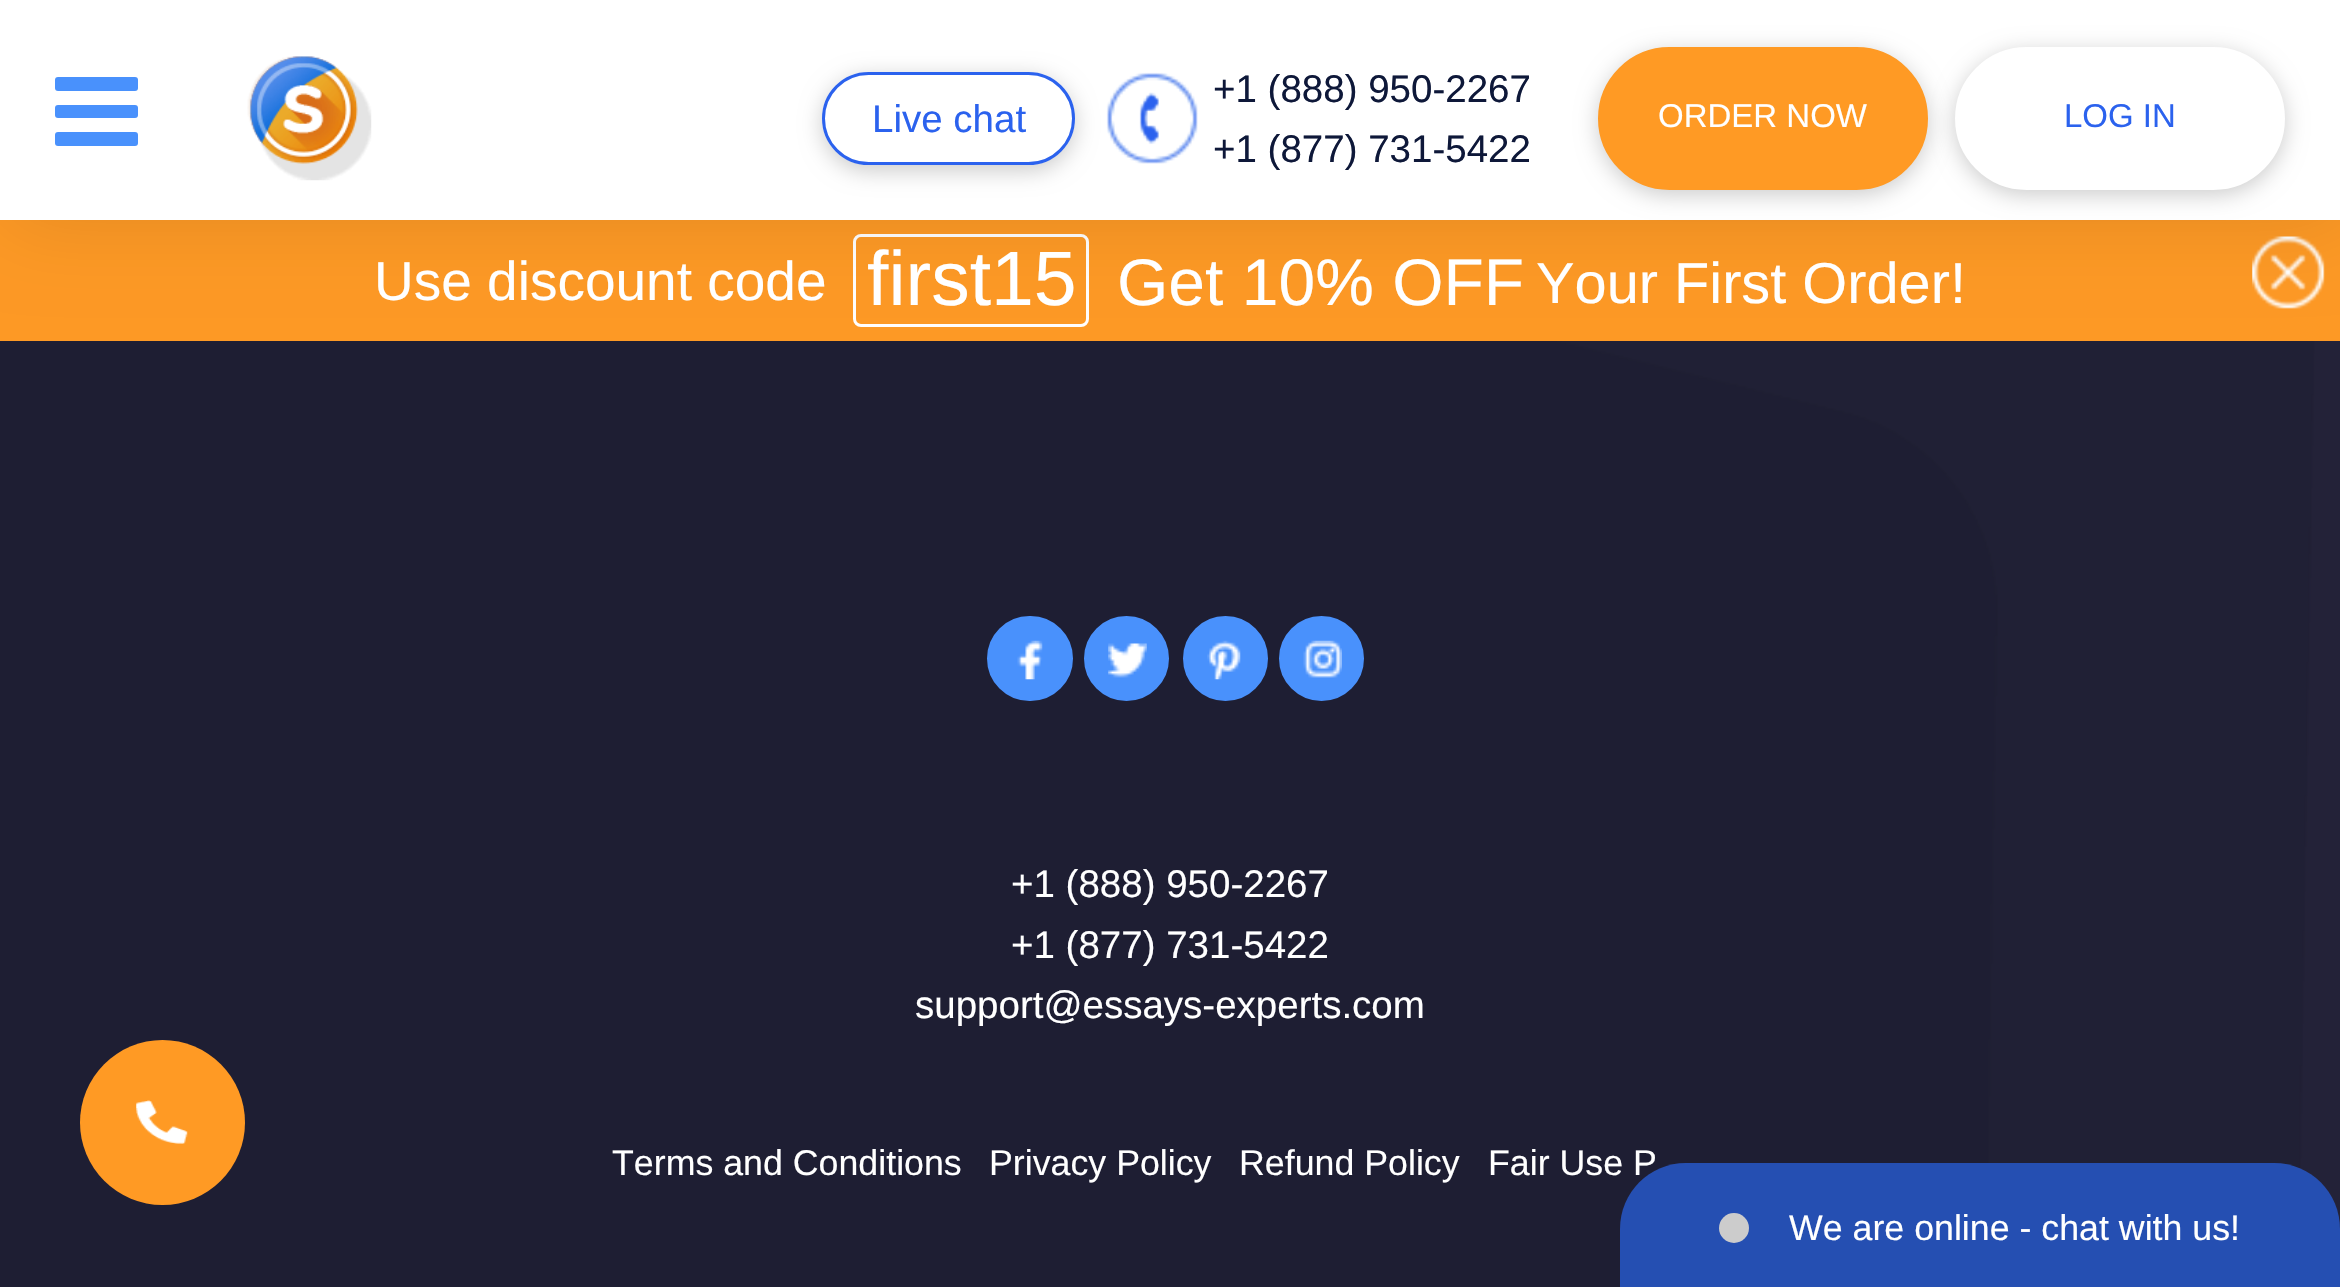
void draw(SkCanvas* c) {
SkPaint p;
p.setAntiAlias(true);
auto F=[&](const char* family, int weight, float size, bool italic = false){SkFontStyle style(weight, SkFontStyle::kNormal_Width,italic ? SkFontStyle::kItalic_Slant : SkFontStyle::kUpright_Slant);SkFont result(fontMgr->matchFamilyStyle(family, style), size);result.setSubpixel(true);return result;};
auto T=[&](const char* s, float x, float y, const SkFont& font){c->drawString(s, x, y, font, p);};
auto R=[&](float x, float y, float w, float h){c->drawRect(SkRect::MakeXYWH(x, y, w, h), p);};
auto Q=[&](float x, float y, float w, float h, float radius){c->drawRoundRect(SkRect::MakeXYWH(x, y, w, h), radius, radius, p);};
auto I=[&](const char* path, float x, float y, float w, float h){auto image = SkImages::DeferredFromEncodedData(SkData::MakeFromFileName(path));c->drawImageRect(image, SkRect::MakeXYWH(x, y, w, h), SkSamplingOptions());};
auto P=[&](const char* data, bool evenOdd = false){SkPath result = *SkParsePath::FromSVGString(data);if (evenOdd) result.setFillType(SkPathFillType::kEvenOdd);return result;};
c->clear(0xff232238);
I("6.png",0,220,2315,1067);
p.setColor(0xfcff9a24);
R(0,220,2340,121);
p.setStroke(true);
p.setStrokeWidth(3);
p.setColor(0xfffffefe);
c->drawRoundRect(SkRect::MakeXYWH(854.5,235.5,233,90),6.5,6.5,p);
I("4.png",2252,236,73,73);
p.setStroke(false);
p.setColor(0x1a000000);
p.setMaskFilter(SkMaskFilter::MakeBlur(kNormal_SkBlurStyle, 41));
c->drawRect(SkRect::MakeXYWH(8,0,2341,220),p);
p.setMaskFilter(nullptr);
p.setColor(0xffffffff);
R(0,0,2340,220);
p.setColor(0xff4991fc);
Q(55,77,83,14,3);
Q(55,105,83,13,3);
Q(55,132,83,14,3);
I("1.png",247,56,125,125);
c->save();
c->clipPath(P("M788 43h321v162h-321zm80.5 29h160c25.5 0 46.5 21 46.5 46.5c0 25.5-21 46.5-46.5 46.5h-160c-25.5 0-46.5-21-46.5-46.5c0-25.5 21-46.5 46.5-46.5z",true),true);
p.setColor(0x33000000);
p.setMaskFilter(SkMaskFilter::MakeBlur(kNormal_SkBlurStyle, 11));
c->drawRoundRect(SkRect::MakeXYWH(822,77,253,94),47,47,p);
p.setMaskFilter(nullptr);
c->restore();
p.setStroke(true);
p.setColor(0xff2b62ee);
c->drawRoundRect(SkRect::MakeXYWH(823.5,73.5,250,90),45,45,p);
auto f1 = F("Liberation Sans",400,38.5);
p.setStroke(false);
T("Live chat",872,132,f1);
I("2.png",1106,72,92,92);
I("3.png",1107,73,91,91);
p.setColor(0xff0e1839);
T("+1 (888) 950-2267",1213,102,f1);
T("+1 (877) 731-5422",1213,162,f1);
p.setColor(0x33000000);
p.setMaskFilter(SkMaskFilter::MakeBlur(kNormal_SkBlurStyle, 11));
c->drawRoundRect(SkRect::MakeXYWH(1598,52,330,143),71.5,71.5,p);
p.setMaskFilter(nullptr);
p.setColor(0xffff9a24);
c->drawRoundRect(SkRect::MakeXYWH(1599.5,48.5,327,140),70,70,p);
p.setStroke(true);
c->drawRoundRect(SkRect::MakeXYWH(1599.5,48.5,327,140),70,70,p);
auto f2 = F("Liberation Sans",400,33);
p.setStroke(false);
p.setColor(0xffffffff);
T("ORDER NOW",1658,127,f2);
p.setColor(0x33000000);
p.setMaskFilter(SkMaskFilter::MakeBlur(kNormal_SkBlurStyle, 11));
c->drawRoundRect(SkRect::MakeXYWH(1955,52,330,143),71.5,71.5,p);
p.setMaskFilter(nullptr);
p.setColor(0xffffffff);
c->drawRoundRect(SkRect::MakeXYWH(1956.5,48.5,327,140),70,70,p);
p.setStroke(true);
c->drawRoundRect(SkRect::MakeXYWH(1956.5,48.5,327,140),70,70,p);
p.setStroke(false);
p.setColor(0xff2b62ee);
T("LOG IN",2064,127,f2);
auto f3 = F("Liberation Sans",400,55);
p.setColor(0xffffffff);
T("Use discount code",374,300,f3);
auto f4 = F("Liberation Sans",400,77);
T("first15",867,305,f4);
auto f5 = F("Liberation Sans",400,66);
T("Get 10% OFF",1117,305,f5);
auto f6 = F("Liberation Sans",400,57.75);
T("Your First Order!",1536,303,f6);
p.setColor(0xffff9a24);
c->drawCircle(162.5,1122.5,82.5,p);
I("5.png",136,1100,52,44);
p.setColor(0xff4991fc);
c->drawRoundRect(SkRect::MakeXYWH(988.5,617.5,83,82),41,41,p);
p.setStroke(true);
c->drawRoundRect(SkRect::MakeXYWH(988.5,617.5,83,82),41,41,p);
I("7.png",1017,640,26,40);
p.setStroke(false);
c->drawCircle(1126.5,658.5,41,p);
p.setStroke(true);
c->drawCircle(1126.5,658.5,41,p);
I("8.png",1108,643,39,35);
p.setStroke(false);
c->drawCircle(1225.5,658.5,41,p);
p.setStroke(true);
c->drawCircle(1225.5,658.5,41,p);
I("9.png",1207,640,34,40);
p.setStroke(false);
c->drawCircle(1321.5,658.5,41,p);
p.setStroke(true);
c->drawCircle(1321.5,658.5,41,p);
I("10.png",1303,640,39,38);
p.setStroke(false);
p.setColor(0xffffffff);
T("+1 (888) 950-2267",1011,897,f1);
T("+1 (877) 731-5422",1011,958,f1);
T("support@essays-experts.com",915,1018,f1);
auto f7 = F("Liberation Sans",400,35.75);
T("Terms and Conditions",612,1175,f7);
T("Privacy Policy",989,1175,f7);
T("Refund Policy",1239,1175,f7);
T("Fair Use P",1488,1175,f7);
p.setColor(0xff254fb2);
c->drawPath(P("M1686 1163h588c36.5 0 66 29.5 66 66v58h-720v-58c0-36.5 29.5-66 66-66z"),p);
p.setColor(0xffcccccc);
c->drawCircle(1734,1228,15,p);
p.setColor(0xffffffff);
T("We are online - chat with us!",1789,1240,f7);
}
